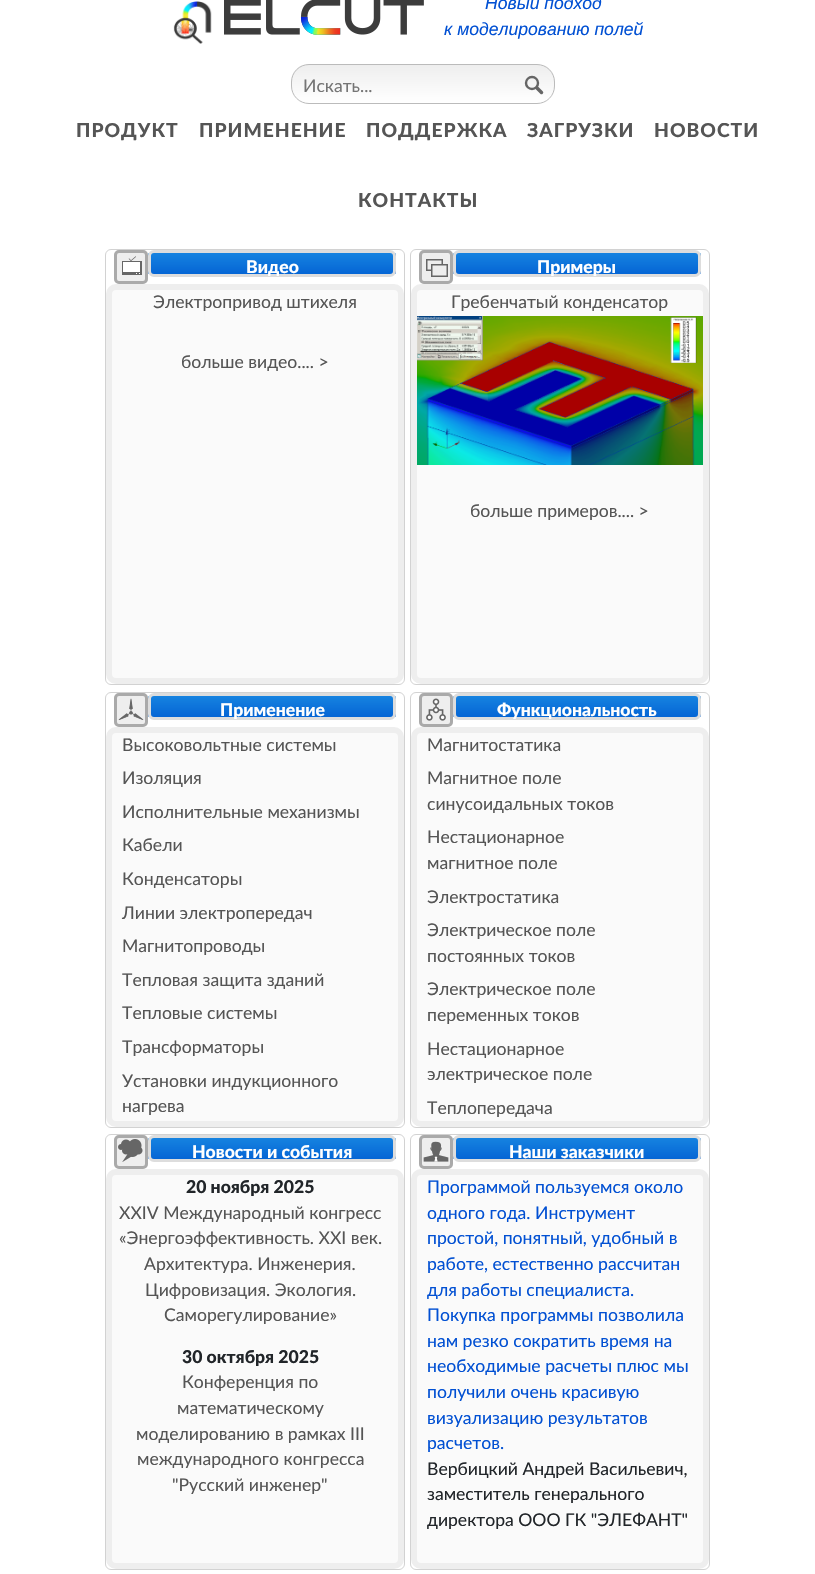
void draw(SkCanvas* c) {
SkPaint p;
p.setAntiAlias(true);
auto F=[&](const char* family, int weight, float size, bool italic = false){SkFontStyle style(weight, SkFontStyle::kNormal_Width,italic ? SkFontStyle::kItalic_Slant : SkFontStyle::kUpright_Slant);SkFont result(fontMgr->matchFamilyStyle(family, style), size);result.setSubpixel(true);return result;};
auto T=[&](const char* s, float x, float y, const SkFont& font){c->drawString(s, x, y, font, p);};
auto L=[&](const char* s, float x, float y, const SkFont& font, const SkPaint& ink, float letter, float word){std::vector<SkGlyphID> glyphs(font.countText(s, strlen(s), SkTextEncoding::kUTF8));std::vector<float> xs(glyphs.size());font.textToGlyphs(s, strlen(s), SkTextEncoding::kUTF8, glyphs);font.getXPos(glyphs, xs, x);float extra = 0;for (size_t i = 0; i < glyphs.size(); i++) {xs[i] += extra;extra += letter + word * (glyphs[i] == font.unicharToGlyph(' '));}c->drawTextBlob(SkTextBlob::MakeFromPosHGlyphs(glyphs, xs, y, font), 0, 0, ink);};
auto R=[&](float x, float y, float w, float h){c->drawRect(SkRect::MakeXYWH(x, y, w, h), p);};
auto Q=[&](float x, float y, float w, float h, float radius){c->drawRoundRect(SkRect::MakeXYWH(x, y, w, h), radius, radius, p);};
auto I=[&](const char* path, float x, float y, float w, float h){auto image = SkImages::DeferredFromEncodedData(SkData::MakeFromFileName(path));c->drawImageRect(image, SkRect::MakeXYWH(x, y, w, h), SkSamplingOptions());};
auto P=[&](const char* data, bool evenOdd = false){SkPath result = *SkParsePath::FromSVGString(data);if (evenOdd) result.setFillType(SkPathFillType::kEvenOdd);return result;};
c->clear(0xffffffff);
I("1.png",172,1,42,43);
I("2.png",224,0,200,35);
auto f1 = F("Liberation Sans",400,17.6,true);
p.setColor(0xff0150d3);
T("Новый подход",485,9,f1);
T("к моделированию полей",444,35,f1);
c->save();
c->clipPath(P("M309 64h228c10 0 18 8 18 18v4c0 10-8 18-18 18h-228c-10 0-18-8-18-18v-4c0-10 8-18 18-18z"),true);
{
const SkColor colors[] = {0xffeeeeee,0xffffffff};
const float stops[] = {0,1};
const SkPoint ends[] = {{423,65}, {423,103}};
p.setShader(SkGradientShader::MakeLinear(ends, colors, stops, 2, SkTileMode::kClamp));
p.setAlpha(255);
}
R(291,65,264,38);
c->restore();
p.setStroke(true);
p.setStrokeWidth(1);
p.setShader(nullptr);
p.setColor(0xffbbbbbb);
c->drawRoundRect(SkRect::MakeXYWH(291.5,64.5,263,39),17.5,17.5,p);
auto f2 = F("Lato",400,17.6);
p.setStroke(false);
p.setColor(0xff757575);
T("Искать...",303,92,f2);
p.setStroke(true);
p.setStrokeWidth(2.4);
p.setColor(0xff666666);
c->drawCircle(532,83,6,p);
p.setStrokeWidth(3.5);
p.setStrokeCap(SkPaint::kRound_Cap);
c->drawPath(P("M537 88l4.5 4.5"),p);
auto f3 = F("Lato",900,19.25);
p.setStroke(false);
p.setColor(0xff555555);
L("ПРОДУКТ",76,137,f3,p,1,0);
L("ПРИМЕНЕНИЕ",199,137,f3,p,1,0);
L("ПОДДЕРЖКА",366,137,f3,p,1,0);
L("ЗАГРУЗКИ",527,137,f3,p,1,0);
L("НОВОСТИ",654,137,f3,p,1,0);
L("КОНТАКТЫ",358,207,f3,p,1,0);
p.setStroke(true);
p.setStrokeWidth(1);
p.setStrokeCap(SkPaint::kButt_Cap);
p.setColor(0xffd2d2d2);
c->drawRoundRect(SkRect::MakeXYWH(105.5,249.5,299,435),5.5,5.5,p);
p.setStroke(false);
p.setColor(0xffeeeeee);
Q(114,250,34,34,5);
I("3.png",122,256,20,19);
p.setStroke(true);
p.setStrokeWidth(3);
p.setColor(0xffaaaaaa);
c->drawRoundRect(SkRect::MakeXYWH(115.5,251.5,31,31),3.5,3.5,p);
c->save();
c->clipPath(P("M154 250h236c3.5 0 6 2.5 6 6v15c0 3.5-2.5 6-6 6h-236c-3.5 0-6-2.5-6-6v-15c0-3.5 2.5-6 6-6z"),true);
p.setStroke(false);
{
const SkColor colors[] = {0xff1683e0,0xff0565d5};
const float stops[] = {0,1};
const SkPoint ends[] = {{272,253}, {272,274}};
p.setShader(SkGradientShader::MakeLinear(ends, colors, stops, 2, SkTileMode::kClamp));
p.setAlpha(255);
}
R(148,253,248,21);
c->restore();
p.setStroke(true);
p.setShader(nullptr);
p.setColor(0xffdddddd);
c->drawRoundRect(SkRect::MakeXYWH(149.5,251.5,245,24),4.5,4.5,p);
auto f4 = F("Lato",900,17.6);
p.setStroke(false);
p.setColor(0xffffffff);
T("Видео",246,273,f4);
p.setColor(0xfffafafa);
c->drawRoundRect(SkRect::MakeXYWH(109,287,292,394),7,7,p);
p.setStroke(true);
p.setStrokeWidth(6);
p.setColor(0xffeeeeee);
c->drawRoundRect(SkRect::MakeXYWH(109,287,292,394),7,7,p);
p.setStroke(false);
p.setColor(0xff555555);
T("Электропривод штихеля",153,308,f2);
T("больше видео.... >",181,368,f2);
p.setStroke(true);
p.setStrokeWidth(1);
p.setColor(0xffd2d2d2);
c->drawRoundRect(SkRect::MakeXYWH(410.5,249.5,299,435),5.5,5.5,p);
p.setStroke(false);
p.setColor(0xffeeeeee);
Q(419,250,34,34,5);
p.setStroke(true);
p.setStrokeWidth(1.5);
p.setColor(0xff666666);
c->drawRect(SkRect::MakeXYWH(426.75,259.75,15.5,10.5),p);
p.setStroke(false);
p.setColor(0xffeeeeee);
R(432,265,11,6);
p.setStroke(true);
p.setColor(0xff666666);
c->drawRect(SkRect::MakeXYWH(431.75,264.75,15.5,11.5),p);
p.setStrokeWidth(3);
p.setColor(0xffaaaaaa);
c->drawRoundRect(SkRect::MakeXYWH(420.5,251.5,31,31),3.5,3.5,p);
c->save();
c->clipPath(P("M459 250h236c3.5 0 6 2.5 6 6v15c0 3.5-2.5 6-6 6h-236c-3.5 0-6-2.5-6-6v-15c0-3.5 2.5-6 6-6z"),true);
p.setStroke(false);
{
const SkColor colors[] = {0xff1683e0,0xff0565d5};
const float stops[] = {0,1};
const SkPoint ends[] = {{577,253}, {577,274}};
p.setShader(SkGradientShader::MakeLinear(ends, colors, stops, 2, SkTileMode::kClamp));
p.setAlpha(255);
}
R(453,253,248,21);
c->restore();
p.setStroke(true);
p.setShader(nullptr);
p.setColor(0xffdddddd);
c->drawRoundRect(SkRect::MakeXYWH(454.5,251.5,245,24),4.5,4.5,p);
p.setStroke(false);
p.setColor(0xffffffff);
T("Примеры",537,273,f4);
p.setColor(0xfffafafa);
c->drawRoundRect(SkRect::MakeXYWH(414,287,292,394),7,7,p);
p.setStroke(true);
p.setStrokeWidth(6);
p.setColor(0xffeeeeee);
c->drawRoundRect(SkRect::MakeXYWH(414,287,292,394),7,7,p);
p.setStroke(false);
p.setColor(0xff555555);
T("Гребенчатый конденсатор",451,308,f2);
I("4.png",417,316,286,149);
T("больше примеров.... >",470,517,f2);
p.setStroke(true);
p.setStrokeWidth(1);
p.setColor(0xffd2d2d2);
c->drawRoundRect(SkRect::MakeXYWH(105.5,692.5,299,435),5.5,5.5,p);
p.setStroke(false);
p.setColor(0xffeeeeee);
Q(114,693,34,34,5);
I("5.png",118,698,26,22);
p.setStroke(true);
p.setStrokeWidth(3);
p.setColor(0xffaaaaaa);
c->drawRoundRect(SkRect::MakeXYWH(115.5,694.5,31,31),3.5,3.5,p);
c->save();
c->clipPath(P("M154 693h236c3.5 0 6 2.5 6 6v15c0 3.5-2.5 6-6 6h-236c-3.5 0-6-2.5-6-6v-15c0-3.5 2.5-6 6-6z"),true);
p.setStroke(false);
{
const SkColor colors[] = {0xff1683e0,0xff0565d5};
const float stops[] = {0,1};
const SkPoint ends[] = {{272,696}, {272,717}};
p.setShader(SkGradientShader::MakeLinear(ends, colors, stops, 2, SkTileMode::kClamp));
p.setAlpha(255);
}
R(148,696,248,21);
c->restore();
p.setStroke(true);
p.setShader(nullptr);
p.setColor(0xffdddddd);
c->drawRoundRect(SkRect::MakeXYWH(149.5,694.5,245,24),4.5,4.5,p);
p.setStroke(false);
p.setColor(0xffffffff);
T("Применение",220,716,f4);
p.setColor(0xfffafafa);
c->drawRoundRect(SkRect::MakeXYWH(109,730,292,394),7,7,p);
p.setStroke(true);
p.setStrokeWidth(6);
p.setColor(0xffeeeeee);
c->drawRoundRect(SkRect::MakeXYWH(109,730,292,394),7,7,p);
p.setStroke(false);
p.setColor(0xff555555);
T("Высоковольтные системы",122,751,f2);
T("Изоляция",122,784,f2);
T("Исполнительные механизмы",122,818,f2);
T("Кабели",122,851,f2);
T("Конденсаторы",122,885,f2);
T("Линии электропередач",122,919,f2);
T("Магнитопроводы",122,952,f2);
T("Тепловая защита зданий",122,986,f2);
T("Тепловые системы",122,1019,f2);
T("Трансформаторы",122,1053,f2);
T("Установки индукционного",122,1087,f2);
T("нагрева",122,1112,f2);
p.setStroke(true);
p.setStrokeWidth(1);
p.setColor(0xffd2d2d2);
c->drawRoundRect(SkRect::MakeXYWH(410.5,692.5,299,435),5.5,5.5,p);
p.setStroke(false);
p.setColor(0xffeeeeee);
Q(419,693,34,34,5);
I("6.png",426,698,20,23);
p.setStroke(true);
p.setStrokeWidth(3);
p.setColor(0xffaaaaaa);
c->drawRoundRect(SkRect::MakeXYWH(420.5,694.5,31,31),3.5,3.5,p);
c->save();
c->clipPath(P("M459 693h236c3.5 0 6 2.5 6 6v15c0 3.5-2.5 6-6 6h-236c-3.5 0-6-2.5-6-6v-15c0-3.5 2.5-6 6-6z"),true);
p.setStroke(false);
{
const SkColor colors[] = {0xff1683e0,0xff0565d5};
const float stops[] = {0,1};
const SkPoint ends[] = {{577,696}, {577,717}};
p.setShader(SkGradientShader::MakeLinear(ends, colors, stops, 2, SkTileMode::kClamp));
p.setAlpha(255);
}
R(453,696,248,21);
c->restore();
p.setStroke(true);
p.setShader(nullptr);
p.setColor(0xffdddddd);
c->drawRoundRect(SkRect::MakeXYWH(454.5,694.5,245,24),4.5,4.5,p);
p.setStroke(false);
p.setColor(0xffffffff);
T("Функциональность",497,716,f4);
p.setColor(0xfffafafa);
c->drawRoundRect(SkRect::MakeXYWH(414,730,292,394),7,7,p);
p.setStroke(true);
p.setStrokeWidth(6);
p.setColor(0xffeeeeee);
c->drawRoundRect(SkRect::MakeXYWH(414,730,292,394),7,7,p);
p.setStroke(false);
p.setColor(0xff555555);
T("Магнитостатика",427,751,f2);
T("Магнитное поле",427,784,f2);
T("синусоидальных токов",427,810,f2);
T("Нестационарное",427,843,f2);
T("магнитное поле",427,869,f2);
T("Электростатика",427,903,f2);
T("Электрическое поле",427,936,f2);
T("постоянных токов",427,962,f2);
T("Электрическое поле",427,995,f2);
T("переменных токов",427,1021,f2);
T("Нестационарное",427,1055,f2);
T("электрическое поле",427,1080,f2);
T("Теплопередача",427,1114,f2);
p.setStroke(true);
p.setStrokeWidth(1);
p.setColor(0xffd2d2d2);
c->drawRoundRect(SkRect::MakeXYWH(105.5,1134.5,299,435),5.5,5.5,p);
p.setStroke(false);
p.setColor(0xffeeeeee);
Q(114,1135,34,34,5);
I("7.png",118,1139,25,23);
p.setStroke(true);
p.setStrokeWidth(3);
p.setColor(0xffaaaaaa);
c->drawRoundRect(SkRect::MakeXYWH(115.5,1136.5,31,31),3.5,3.5,p);
c->save();
c->clipPath(P("M154 1135h236c3.5 0 6 2.5 6 6v15c0 3.5-2.5 6-6 6h-236c-3.5 0-6-2.5-6-6v-15c0-3.5 2.5-6 6-6z"),true);
p.setStroke(false);
{
const SkColor colors[] = {0xff1683e0,0xff0565d5};
const float stops[] = {0,1};
const SkPoint ends[] = {{272,1138}, {272,1159}};
p.setShader(SkGradientShader::MakeLinear(ends, colors, stops, 2, SkTileMode::kClamp));
p.setAlpha(255);
}
R(148,1138,248,21);
c->restore();
p.setStroke(true);
p.setShader(nullptr);
p.setColor(0xffdddddd);
c->drawRoundRect(SkRect::MakeXYWH(149.5,1136.5,245,24),4.5,4.5,p);
p.setStroke(false);
p.setColor(0xffffffff);
T("Новости и cобытия",192,1158,f4);
p.setColor(0xfffafafa);
c->drawRoundRect(SkRect::MakeXYWH(109,1172,292,394),7,7,p);
p.setStroke(true);
p.setStrokeWidth(6);
p.setColor(0xffeeeeee);
c->drawRoundRect(SkRect::MakeXYWH(109,1172,292,394),7,7,p);
p.setStroke(false);
p.setColor(0xff212529);
T("20 ноября 2025",186,1193,f4);
p.setColor(0xff555555);
T("XXIV Международный конгресс",119,1219,f2);
T("«Энергоэффективность. XXI век.",119,1244,f2);
T("Архитектура. Инженерия.",144,1270,f2);
T("Цифровизация. Экология.",145,1296,f2);
T("Саморегулирование»",164,1321,f2);
p.setColor(0xff212529);
T("30 октября 2025",182,1363,f4);
p.setColor(0xff555555);
T("Конференция по",182,1388,f2);
T("математическому",177,1414,f2);
T("моделированию в рамках III",136,1440,f2);
T("международного конгресса",137,1465,f2);
T("\"Русский инженер\"",172,1491,f2);
p.setStroke(true);
p.setStrokeWidth(1);
p.setColor(0xffd2d2d2);
c->drawRoundRect(SkRect::MakeXYWH(410.5,1134.5,299,435),5.5,5.5,p);
p.setStroke(false);
p.setColor(0xffeeeeee);
Q(419,1135,34,34,5);
I("8.png",423,1141,26,21);
p.setStroke(true);
p.setStrokeWidth(3);
p.setColor(0xffaaaaaa);
c->drawRoundRect(SkRect::MakeXYWH(420.5,1136.5,31,31),3.5,3.5,p);
c->save();
c->clipPath(P("M459 1135h236c3.5 0 6 2.5 6 6v15c0 3.5-2.5 6-6 6h-236c-3.5 0-6-2.5-6-6v-15c0-3.5 2.5-6 6-6z"),true);
p.setStroke(false);
{
const SkColor colors[] = {0xff1683e0,0xff0565d5};
const float stops[] = {0,1};
const SkPoint ends[] = {{577,1138}, {577,1159}};
p.setShader(SkGradientShader::MakeLinear(ends, colors, stops, 2, SkTileMode::kClamp));
p.setAlpha(255);
}
R(453,1138,248,21);
c->restore();
p.setStroke(true);
p.setShader(nullptr);
p.setColor(0xffdddddd);
c->drawRoundRect(SkRect::MakeXYWH(454.5,1136.5,245,24),4.5,4.5,p);
p.setStroke(false);
p.setColor(0xffffffff);
T("Наши заказчики",509,1158,f4);
p.setColor(0xfffafafa);
c->drawRoundRect(SkRect::MakeXYWH(414,1172,292,394),7,7,p);
p.setStroke(true);
p.setStrokeWidth(6);
p.setColor(0xffeeeeee);
c->drawRoundRect(SkRect::MakeXYWH(414,1172,292,394),7,7,p);
p.setStroke(false);
p.setColor(0xff0150d3);
T("Программой пользуемся около",427,1193,f2);
T("одного года. Инструмент",427,1219,f2);
T("простой, понятный, удобный в",427,1244,f2);
T("работе, естественно рассчитан",427,1270,f2);
T("для работы специалиста.",427,1296,f2);
T("Покупка программы позволила",427,1321,f2);
T("нам резко сократить время на",427,1347,f2);
T("необходимые расчеты плюс мы",427,1372,f2);
T("получили очень красивую",427,1398,f2);
T("визуализацию результатов",427,1424,f2);
T("расчетов.",427,1449,f2);
p.setColor(0xff212529);
T("Вербицкий Андрей Васильевич,",427,1475,f2);
T("заместитель генерального",427,1500,f2);
T("директора ООО ГК \"ЭЛЕФАНТ\"",427,1526,f2);
}
